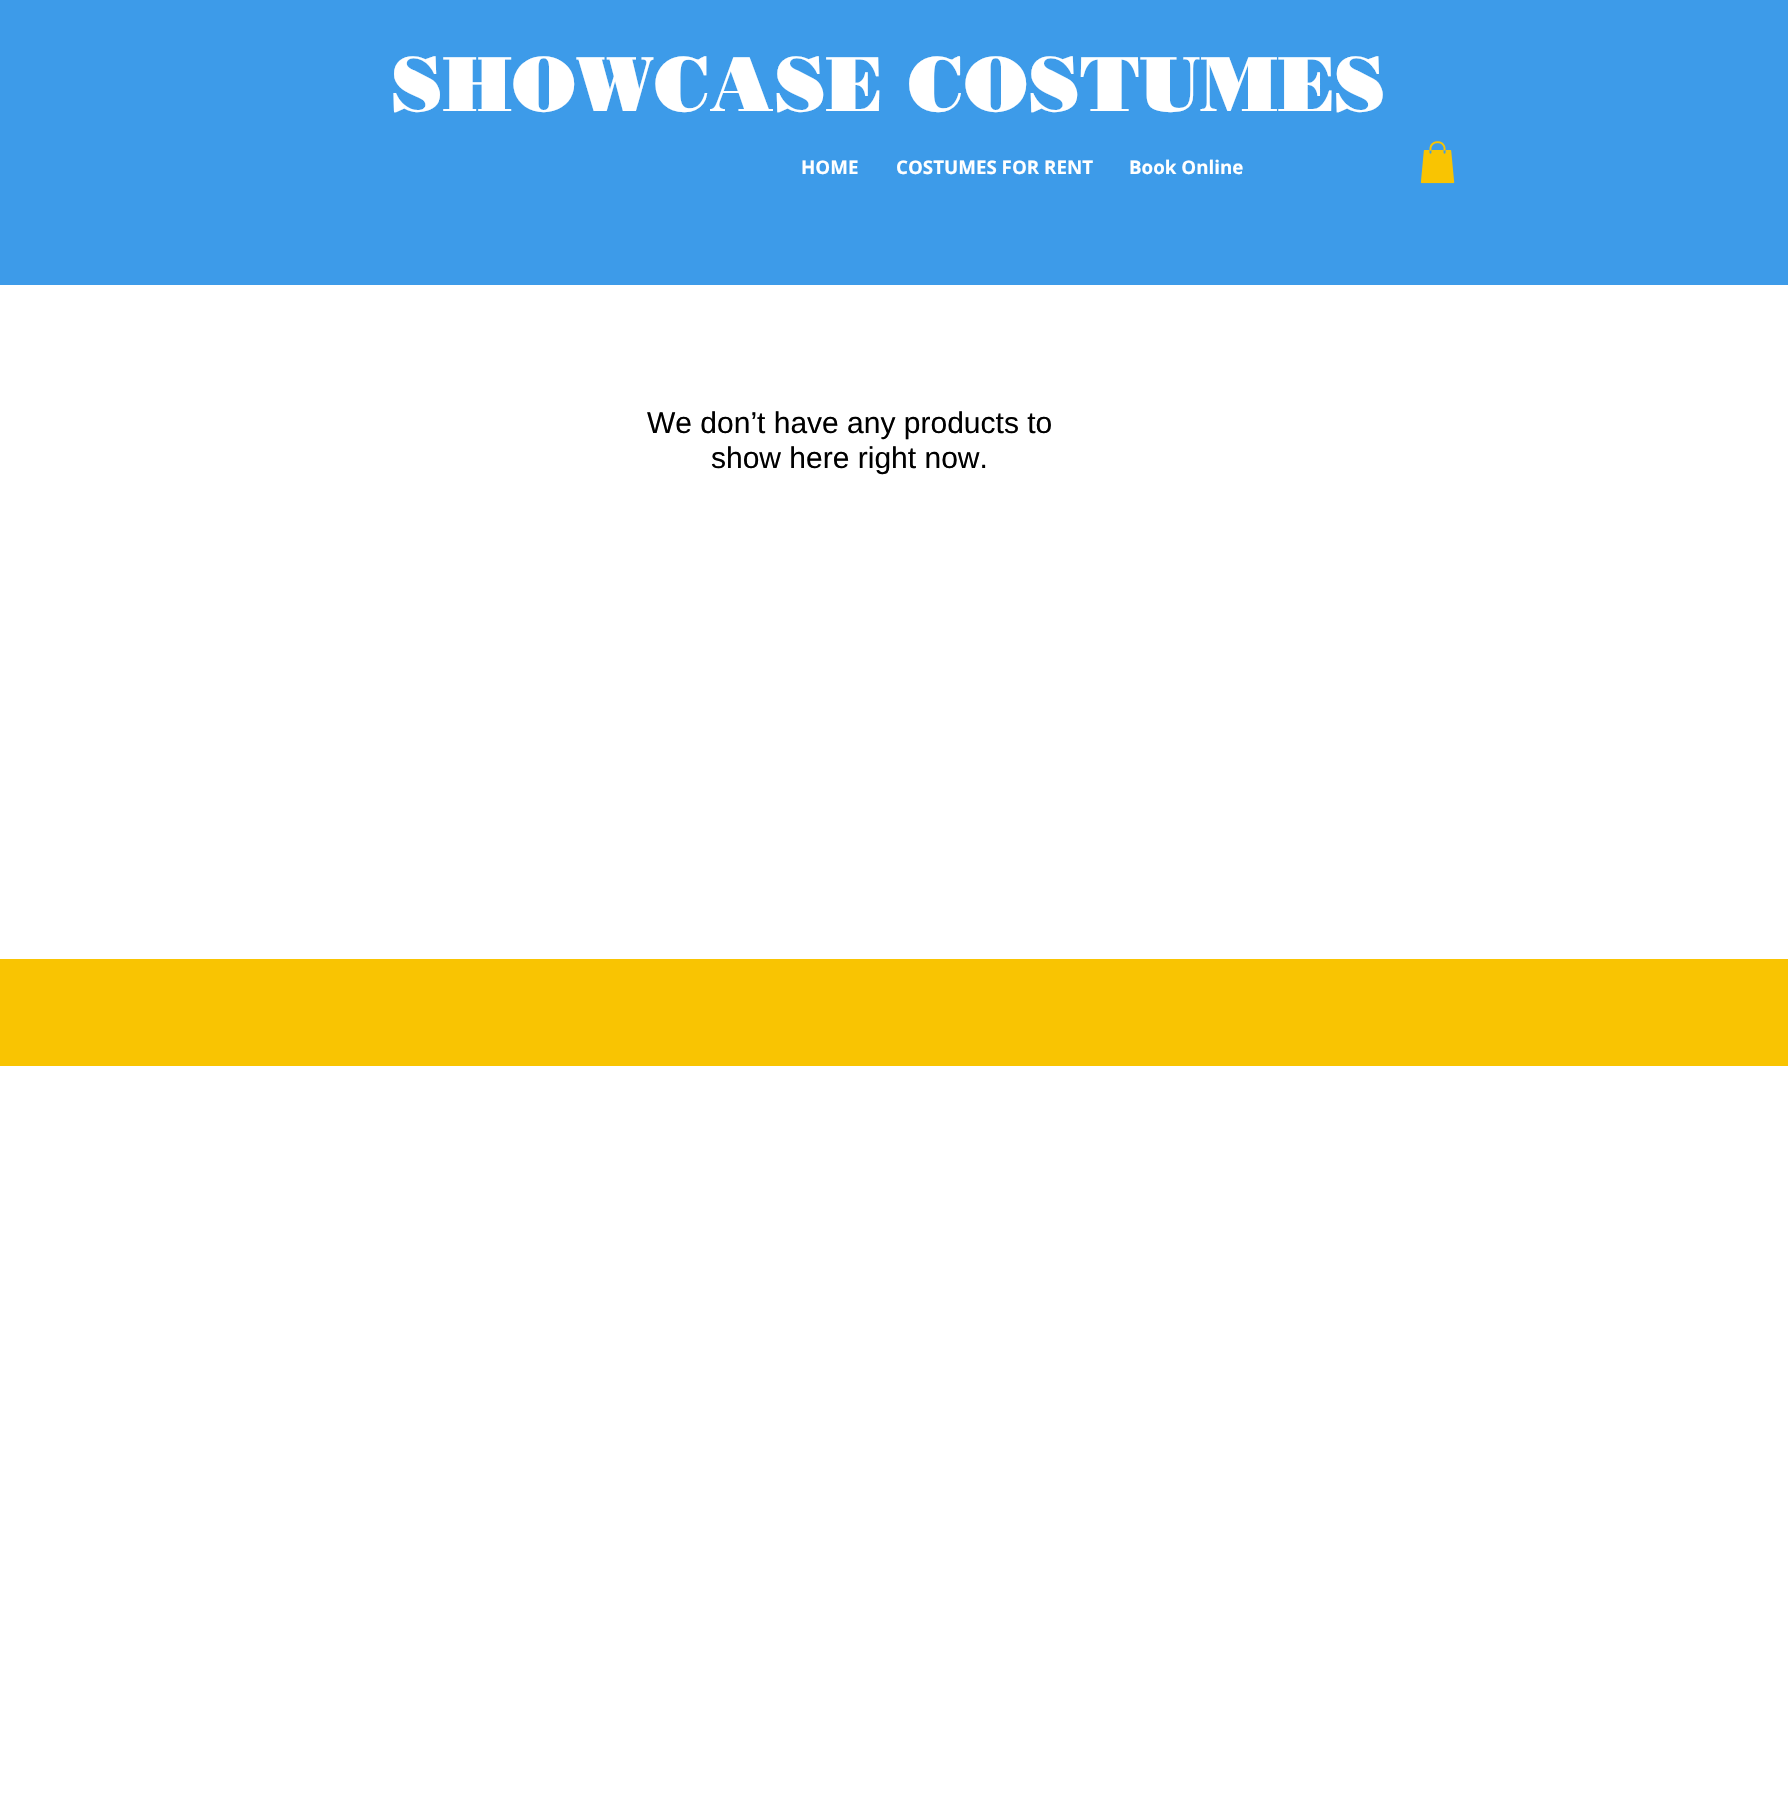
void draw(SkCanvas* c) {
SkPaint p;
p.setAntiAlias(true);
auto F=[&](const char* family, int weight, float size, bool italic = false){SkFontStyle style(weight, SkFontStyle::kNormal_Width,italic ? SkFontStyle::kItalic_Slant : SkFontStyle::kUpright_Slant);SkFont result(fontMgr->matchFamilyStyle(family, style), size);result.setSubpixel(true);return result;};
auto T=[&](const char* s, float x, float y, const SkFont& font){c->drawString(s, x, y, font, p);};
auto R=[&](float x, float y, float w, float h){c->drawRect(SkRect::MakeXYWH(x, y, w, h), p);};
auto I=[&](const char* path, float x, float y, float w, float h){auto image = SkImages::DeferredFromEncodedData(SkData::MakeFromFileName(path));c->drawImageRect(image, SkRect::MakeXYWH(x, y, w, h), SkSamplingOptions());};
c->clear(0xffffffff);
p.setColor(0xff3d9be9);
R(0,0,1788,285);
auto f1 = F("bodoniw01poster",900,77.5);
p.setColor(0xffffffff);
T("SHOWCASE COSTUMES",391,111,f1);
auto f2 = F("Open Sans",700,18.75);
T("HOME",801,174,f2);
T("COSTUMES FOR RENT",896,174,f2);
T("Book Online",1129,174,f2);
I("1.png",1420,141,35,43);
auto f3 = F("Liberation Sans",400,30);
p.setColor(0xff000000);
T("We don’t have any products to",647,433,f3);
T("show here right now.",711,468,f3);
p.setColor(0xfff9c402);
R(0,959,1788,107);
}
